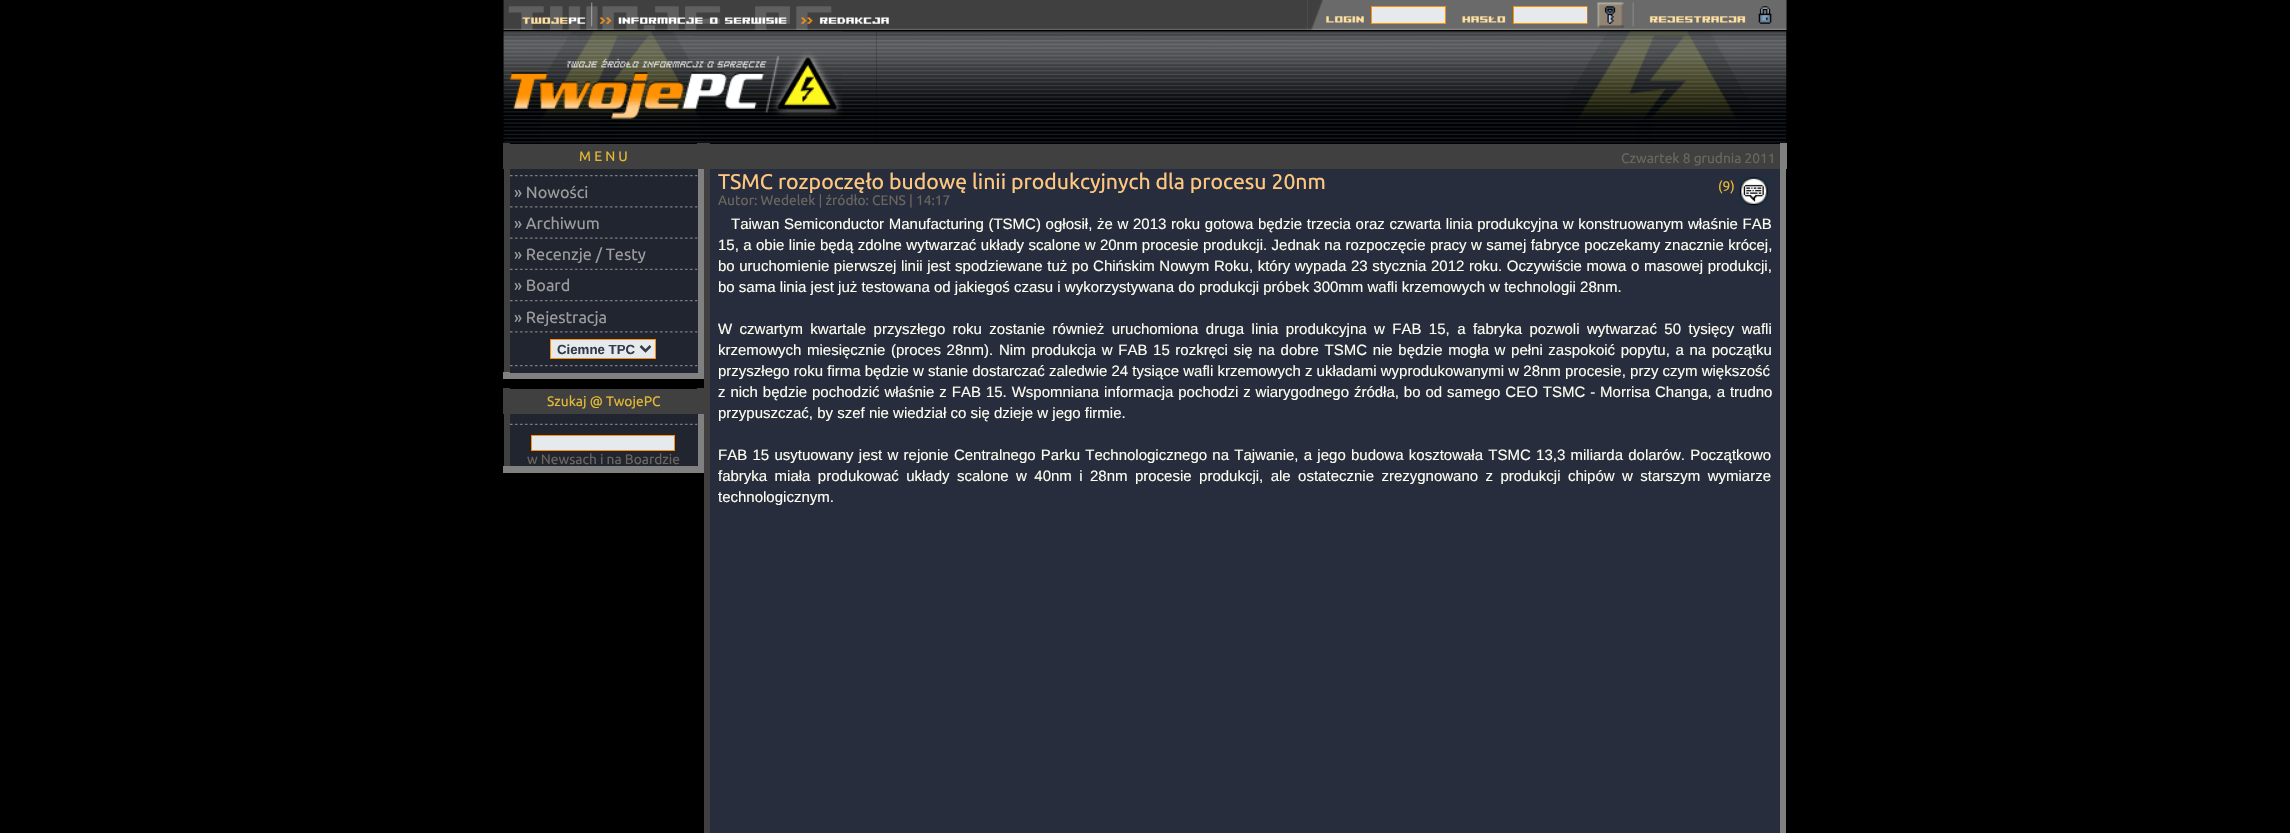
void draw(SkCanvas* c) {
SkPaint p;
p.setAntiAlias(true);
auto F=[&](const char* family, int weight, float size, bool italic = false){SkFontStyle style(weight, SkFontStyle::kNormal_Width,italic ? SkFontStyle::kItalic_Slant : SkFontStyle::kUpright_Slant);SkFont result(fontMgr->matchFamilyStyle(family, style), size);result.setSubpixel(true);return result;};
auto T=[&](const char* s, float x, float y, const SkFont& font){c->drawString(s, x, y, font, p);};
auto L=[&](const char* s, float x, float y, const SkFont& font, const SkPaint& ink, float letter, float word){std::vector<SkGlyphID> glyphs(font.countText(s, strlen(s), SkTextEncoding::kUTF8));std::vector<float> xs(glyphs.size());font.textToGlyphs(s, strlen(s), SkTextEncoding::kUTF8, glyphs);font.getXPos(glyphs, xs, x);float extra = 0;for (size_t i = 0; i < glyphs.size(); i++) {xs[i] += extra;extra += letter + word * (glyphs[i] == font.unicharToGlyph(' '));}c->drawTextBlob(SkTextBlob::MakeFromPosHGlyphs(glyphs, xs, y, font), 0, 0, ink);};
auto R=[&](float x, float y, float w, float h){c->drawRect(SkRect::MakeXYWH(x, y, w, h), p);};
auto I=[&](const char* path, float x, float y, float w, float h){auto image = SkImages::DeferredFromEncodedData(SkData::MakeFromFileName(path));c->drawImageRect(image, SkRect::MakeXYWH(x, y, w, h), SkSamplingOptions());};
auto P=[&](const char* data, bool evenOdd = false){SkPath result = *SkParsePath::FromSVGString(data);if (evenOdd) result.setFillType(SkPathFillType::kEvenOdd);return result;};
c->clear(0xff000000);
I("1.png",503,0,1284,30);
I("2.png",503,0,90,30);
I("3.png",592,2,198,28);
I("4.png",796,6,93,24);
I("5.png",1307,0,480,30);
I("6.png",1307,0,57,30);
p.setColor(0xffe7eaed);
c->drawRect(SkRect::MakeXYWH(1371.5,6.5,74,17),p);
p.setStroke(true);
p.setStrokeWidth(1);
p.setColor(0xffff9000);
c->drawRect(SkRect::MakeXYWH(1371.5,6.5,74,17),p);
p.setStroke(false);
p.setColor(0xffe7eaed);
c->drawRect(SkRect::MakeXYWH(1513.5,6.5,74,17),p);
p.setStroke(true);
p.setColor(0xffff9000);
c->drawRect(SkRect::MakeXYWH(1513.5,6.5,74,17),p);
I("7.png",1597,2,27,26);
I("8.png",1623,2,11,25);
I("9.png",1649,0,138,30);
I("10.png",1462,16,44,7);
p.setStroke(false);
p.setColor(0xffb57d35);
R(1587,6,1,18);
I("11.png",503,31,374,112);
I("12.png",503,31,340,111);
I("13.png",876,31,911,112);
p.setColor(0xff404040);
R(503,143,7,26);
R(510,144,187,25);
auto f1 = F("Ubuntu",400,13.75);
p.setColor(0xffe5b933);
T("M E N U",579,161,f1);
p.setColor(0xff404040);
R(697,143,13,26);
R(504,169,6,204);
p.setColor(0xff808080);
R(698,169,6,204);
R(510,373,188,6);
R(697,372,7,7);
p.setColor(0xff212530);
R(510,169,188,204);
I("14.png",510,175,188,2);
auto f2 = F("Ubuntu",400,16.25);
p.setColor(0xff9c9c9c);
T("» Nowości",514,198,f2);
I("15.png",510,206,188,2);
T("» Archiwum",514,229,f2);
I("16.png",510,237,188,2);
T("» Recenzje / Testy",514,260,f2);
I("17.png",510,268,188,2);
T("» Board",514,291,f2);
I("14.png",510,300,188,2);
T("» Rejestracja",514,323,f2);
I("15.png",510,331,188,2);
p.setColor(0xffe7eaed);
c->drawRect(SkRect::MakeXYWH(550.5,339.5,105,19),p);
p.setStroke(true);
p.setColor(0xffff9000);
c->drawRect(SkRect::MakeXYWH(550.5,339.5,105,19),p);
p.setStrokeWidth(2.5);
p.setColor(0xff343a49);
c->drawPath(P("M640.5 346l5 5l5-5"),p);
auto f3 = F("Liberation Sans",700,13.25);
p.setStroke(false);
T("Ciemne TPC",557,354,f3);
I("14.png",510,365,188,2);
p.setColor(0xff808080);
R(503,372,7,7);
p.setColor(0xff404040);
R(503,388,7,26);
R(510,389,187,25);
p.setColor(0xffe5b933);
T("Szukaj @ TwojePC",547,406,f1);
p.setColor(0xff404040);
R(697,388,7,26);
R(504,414,6,52);
p.setColor(0xff212530);
R(510,414,188,52);
I("17.png",510,423,188,2);
p.setColor(0xffe7eaed);
c->drawRect(SkRect::MakeXYWH(531.5,435.5,143,15),p);
p.setStroke(true);
p.setStrokeWidth(1);
p.setColor(0xffff9000);
c->drawRect(SkRect::MakeXYWH(531.5,435.5,143,15),p);
p.setStroke(false);
p.setColor(0xff6a665e);
T("w Newsach i na Boardzie",527,464,f1);
p.setColor(0xff808080);
R(698,414,6,52);
R(503,466,201,7);
p.setColor(0xff404040);
R(710,144,1070,25);
p.setColor(0xff6a665e);
T("Czwartek 8 grudnia 2011",1621,163,f1);
p.setColor(0xff808080);
R(1780,143,7,26);
p.setColor(0xff404040);
R(704,169,6,664);
p.setColor(0xff272d3d);
R(710,169,1070,664);
p.setColor(0xff808080);
R(1780,169,6,664);
auto f4 = F("Ubuntu",400,21.25);
p.setColor(0xffffc880);
T("TSMC rozpoczęło budowę linii produkcyjnych dla procesu 20nm",718,189,f4);
p.setColor(0xff6a665e);
T("Autor: Wedelek | źródło: CENS | 14:17",718,205,f1);
p.setColor(0xffe5b933);
T("(9)",1718,191,f1);
I("18.png",1739,176,30,30);
auto f5 = F("Liberation Sans",400,15);
p.setColor(0xfffefff0);
L("Taiwan Semiconductor Manufacturing (TSMC) ogłosił, że w 2013 roku gotowa będzie trzecia oraz czwarta linia produkcyjna w konstruowanym właśnie FAB",731,229,f5,p,0,.5);
L("15, a obie linie będą zdolne wytwarzać układy scalone w 20nm procesie produkcji. Jednak na rozpoczęcie pracy w samej fabryce poczekamy znacznie krócej,",718,250,f5,p,0,.25);
L("bo uruchomienie pierwszej linii jest spodziewane tuż po Chińskim Nowym Roku, który wypada 23 stycznia 2012 roku. Oczywiście mowa o masowej produkcji,",718,271,f5,p,0,.4);
T("bo sama linia jest już testowana od jakiegoś czasu i wykorzystywana do produkcji próbek 300mm wafli krzemowych w technologii 28nm.",718,292,f5);
L("W czwartym kwartale przyszłego roku zostanie również uruchomiona druga linia produkcyjna w FAB 15, a fabryka pozwoli wytwarzać 50 tysięcy wafli",718,334,f5,p,0,3.25);
L("krzemowych miesięcznie (proces 28nm). Nim produkcja w FAB 15 rozkręci się na dobre TSMC nie będzie mogła w pełni zaspokoić popytu, a na początku",718,355,f5,p,0,1.45);
T("przyszłego roku firma będzie w stanie dostarczać zaledwie 24 tysiące wafli krzemowych z układami wyprodukowanymi w 28nm procesie, przy czym większość",718,376,f5);
L("z nich będzie pochodzić właśnie z FAB 15. Wspomniana informacja pochodzi z wiarygodnego źródła, bo od samego CEO TSMC - Morrisa Changa, a trudno",718,397,f5,p,0,.75);
T("przypuszczać, by szef nie wiedział co się dzieje w jego firmie.",718,418,f5);
L("FAB 15 usytuowany jest w rejonie Centralnego Parku Technologicznego na Tajwanie, a jego budowa kosztowała TSMC 13,3 miliarda dolarów. Początkowo",718,460,f5,p,0,1.1);
L("fabryka miała produkować układy scalone w 40nm i 28nm procesie produkcji, ale ostatecznie zrezygnowano z produkcji chipów w starszym wymiarze",718,481,f5,p,0,3.25);
T("technologicznym.",718,502,f5);
}
